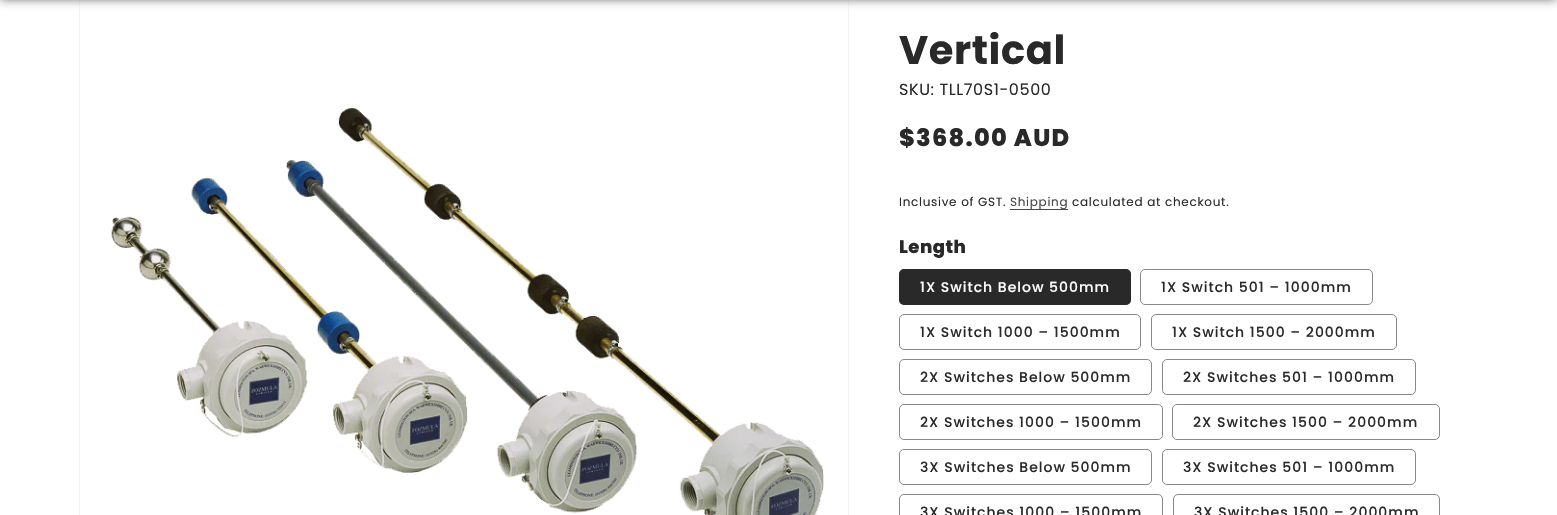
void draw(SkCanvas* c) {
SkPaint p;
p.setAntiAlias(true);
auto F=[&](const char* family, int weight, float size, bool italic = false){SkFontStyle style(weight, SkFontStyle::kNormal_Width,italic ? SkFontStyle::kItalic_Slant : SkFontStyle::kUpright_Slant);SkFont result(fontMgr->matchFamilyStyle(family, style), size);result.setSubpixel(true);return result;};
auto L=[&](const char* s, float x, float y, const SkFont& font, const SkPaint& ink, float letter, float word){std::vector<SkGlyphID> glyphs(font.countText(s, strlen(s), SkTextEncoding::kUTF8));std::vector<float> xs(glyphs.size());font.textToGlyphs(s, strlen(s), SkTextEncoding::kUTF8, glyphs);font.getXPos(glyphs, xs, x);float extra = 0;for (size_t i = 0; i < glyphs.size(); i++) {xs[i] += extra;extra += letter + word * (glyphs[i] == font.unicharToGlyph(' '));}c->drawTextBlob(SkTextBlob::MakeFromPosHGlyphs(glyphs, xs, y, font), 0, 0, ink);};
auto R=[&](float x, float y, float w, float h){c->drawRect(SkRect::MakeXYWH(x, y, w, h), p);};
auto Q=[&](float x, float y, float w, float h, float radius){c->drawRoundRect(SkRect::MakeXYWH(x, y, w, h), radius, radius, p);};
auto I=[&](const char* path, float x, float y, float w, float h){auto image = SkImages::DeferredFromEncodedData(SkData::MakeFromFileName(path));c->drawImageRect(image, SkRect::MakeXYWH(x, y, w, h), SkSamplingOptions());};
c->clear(0xffffffff);
p.setStroke(true);
p.setStrokeWidth(1);
p.setColor(0xfff4f4f4);
c->drawRect(SkRect::MakeXYWH(79.5,-.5,769,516),p);
p.setStroke(false);
p.setColor(0x80000000);
p.setMaskFilter(SkMaskFilter::MakeBlur(kNormal_SkBlurStyle, 5));
c->drawRect(SkRect::MakeXYWH(0,-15,1557,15),p);
p.setMaskFilter(nullptr);
I("1.png",111,108,713,407);
auto f1 = F("Poppins",700,40);
p.setColor(0xff292929);
L("Vertical",899,64,f1,p,.6,0);
auto f2 = F("Poppins",400,16);
L("SKU: TLL70S1-0500",899,95,f2,p,.6,0);
auto f3 = F("Poppins",800,24);
L("$368.00 AUD",899,146,f3,p,1.25,0);
auto f4 = F("Poppins",400,12);
L("Inclusive of GST.",899,206,f4,p,.7,0);
p.setColor(0xff494949);
R(1010,209,58,1);
p.setColor(0xff484848);
L("Shipping",1010,206,f4,p,.7,0);
p.setColor(0xff292929);
L("calculated at checkout.",1072,206,f4,p,.7,0);
auto f5 = F("Poppins",800,18);
L("Length",899,253,f5,p,.5,0);
Q(899,269,232,36,5);
p.setStroke(true);
p.setColor(0x8c292929);
c->drawRoundRect(SkRect::MakeXYWH(899.5,269.5,231,35),4.5,4.5,p);
auto f6 = F("Poppins",500,14);
p.setStroke(false);
p.setColor(0xffffffff);
L("1X Switch Below 500mm",920,292,f6,p,1,0);
p.setStroke(true);
p.setColor(0xff898989);
c->drawRoundRect(SkRect::MakeXYWH(1140.5,269.5,232,35),4.5,4.5,p);
p.setStroke(false);
p.setColor(0xff292929);
L("1X Switch 501 – 1000mm",1161,292,f6,p,1,0);
p.setStroke(true);
p.setColor(0xff898989);
c->drawRoundRect(SkRect::MakeXYWH(899.5,314.5,241,35),4.5,4.5,p);
p.setStroke(false);
p.setColor(0xff292929);
L("1X Switch 1000 – 1500mm",920,337,f6,p,1,0);
p.setStroke(true);
p.setColor(0xff898989);
c->drawRoundRect(SkRect::MakeXYWH(1151.5,314.5,245,35),4.5,4.5,p);
p.setStroke(false);
p.setColor(0xff292929);
L("1X Switch 1500 – 2000mm",1172,337,f6,p,1,0);
p.setStroke(true);
p.setColor(0xff898989);
c->drawRoundRect(SkRect::MakeXYWH(899.5,359.5,252,35),4.5,4.5,p);
p.setStroke(false);
p.setColor(0xff292929);
L("2X Switches Below 500mm",920,382,f6,p,1,0);
p.setStroke(true);
p.setColor(0xff898989);
c->drawRoundRect(SkRect::MakeXYWH(1162.5,359.5,253,35),4.5,4.5,p);
p.setStroke(false);
p.setColor(0xff292929);
L("2X Switches 501 – 1000mm",1183,382,f6,p,1,0);
p.setStroke(true);
p.setColor(0xff898989);
c->drawRoundRect(SkRect::MakeXYWH(899.5,404.5,263,35),4.5,4.5,p);
p.setStroke(false);
p.setColor(0xff292929);
L("2X Switches 1000 – 1500mm",920,427,f6,p,1,0);
p.setStroke(true);
p.setColor(0xff898989);
c->drawRoundRect(SkRect::MakeXYWH(1172.5,404.5,267,35),4.5,4.5,p);
p.setStroke(false);
p.setColor(0xff292929);
L("2X Switches 1500 – 2000mm",1193,427,f6,p,1,0);
p.setStroke(true);
p.setColor(0xff898989);
c->drawRoundRect(SkRect::MakeXYWH(899.5,449.5,252,35),4.5,4.5,p);
p.setStroke(false);
p.setColor(0xff292929);
L("3X Switches Below 500mm",920,472,f6,p,1,0);
p.setStroke(true);
p.setColor(0xff898989);
c->drawRoundRect(SkRect::MakeXYWH(1162.5,449.5,253,35),4.5,4.5,p);
p.setStroke(false);
p.setColor(0xff292929);
L("3X Switches 501 – 1000mm",1183,472,f6,p,1,0);
p.setStroke(true);
p.setColor(0xff898989);
c->drawRoundRect(SkRect::MakeXYWH(899.5,494.5,263,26),4.5,4.5,p);
p.setStroke(false);
p.setColor(0xff292929);
L("3X Switches 1000 – 1500mm",920,517,f6,p,1,0);
p.setStroke(true);
p.setColor(0xff898989);
c->drawRoundRect(SkRect::MakeXYWH(1173.5,494.5,266,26),4.5,4.5,p);
p.setStroke(false);
p.setColor(0xff292929);
L("3X Switches 1500 – 2000mm",1194,517,f6,p,1,0);
}
